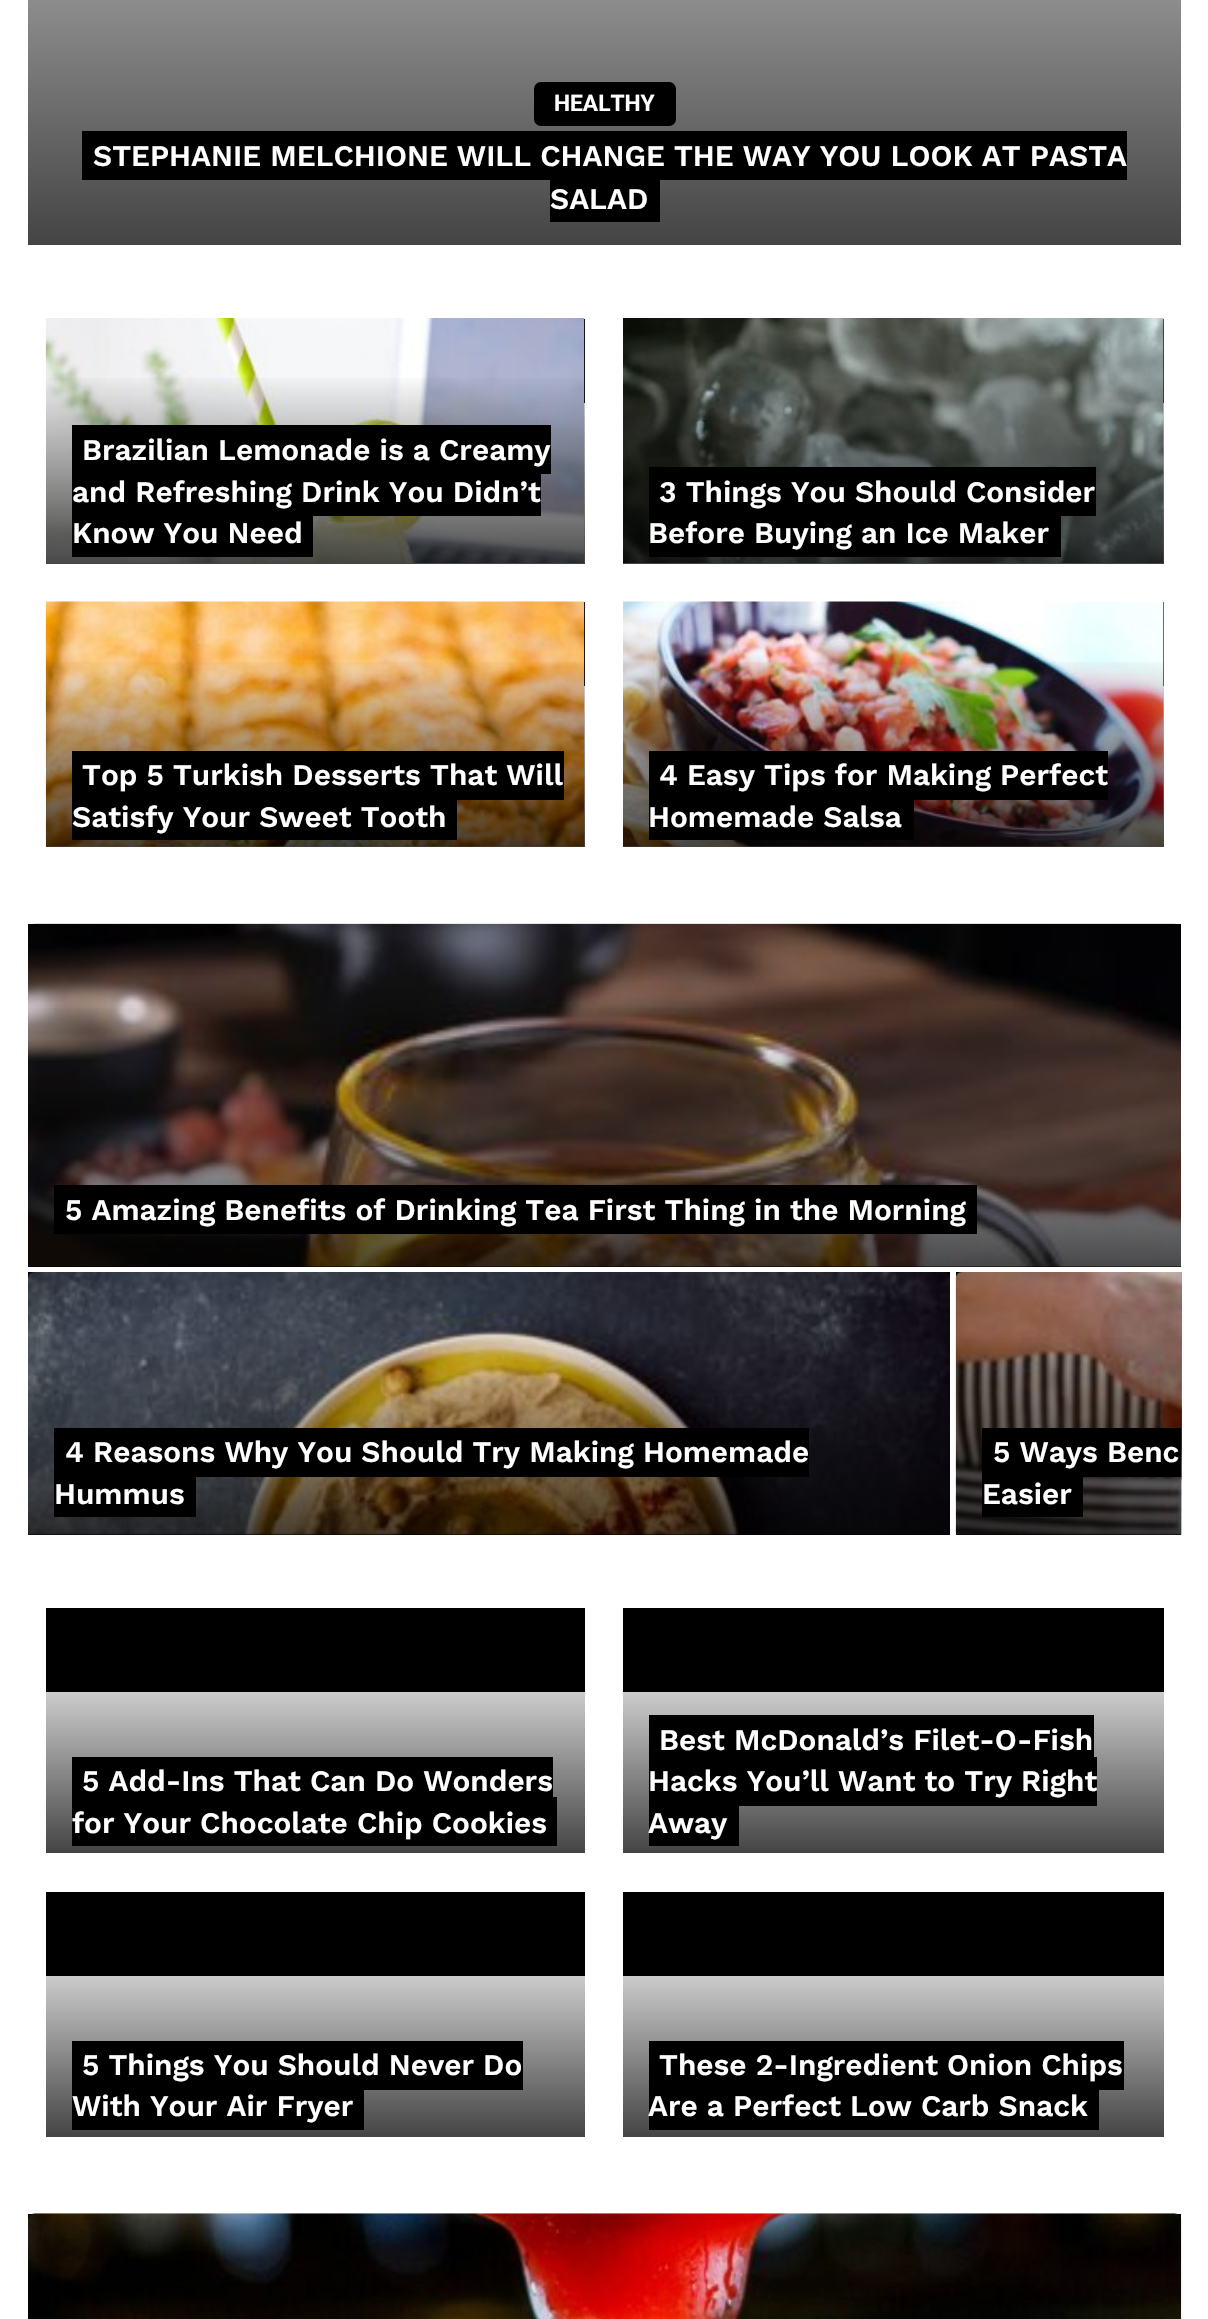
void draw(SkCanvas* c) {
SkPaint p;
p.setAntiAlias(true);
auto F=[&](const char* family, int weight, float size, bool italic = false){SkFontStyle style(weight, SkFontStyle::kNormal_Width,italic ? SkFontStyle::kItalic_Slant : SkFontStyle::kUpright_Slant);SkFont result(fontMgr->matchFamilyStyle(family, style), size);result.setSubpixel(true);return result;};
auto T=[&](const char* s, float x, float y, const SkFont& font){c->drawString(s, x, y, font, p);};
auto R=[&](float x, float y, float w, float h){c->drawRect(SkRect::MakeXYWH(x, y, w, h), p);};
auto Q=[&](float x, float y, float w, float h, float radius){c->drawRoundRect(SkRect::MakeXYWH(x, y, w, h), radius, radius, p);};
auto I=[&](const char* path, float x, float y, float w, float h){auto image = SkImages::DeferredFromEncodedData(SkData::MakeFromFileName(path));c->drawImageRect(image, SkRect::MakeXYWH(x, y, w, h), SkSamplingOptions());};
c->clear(0xffffffff);
{
const SkColor colors[] = {0xffe4e4e4,0xff444444};
const float stops[] = {.4,1};
const SkPoint ends[] = {{605,-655}, {605,245}};
p.setShader(SkGradientShader::MakeLinear(ends, colors, stops, 2, SkTileMode::kClamp));
p.setAlpha(255);
}
R(28,0,1153,245);
p.setShader(nullptr);
p.setColor(0xff000000);
Q(534,82,142,44,7);
auto f1 = F("Roboto",700,22.75);
p.setColor(0xffffffff);
T("HEALTHY",554,111,f1);
p.setColor(0xff000000);
R(82,131,1045,49);
auto f2 = F("Work Sans",600,29.75);
p.setColor(0xffffffff);
T("STEPHANIE MELCHIONE WILL CHANGE THE WAY YOU LOOK AT PASTA",93,166,f2);
p.setColor(0xff000000);
R(550,180,110,42);
p.setColor(0xffffffff);
T("SALAD",550,209,f2);
p.setColor(0xffe5e5e5);
R(46,403,539,161);
p.setColor(0xff000000);
R(584,319,1,84);
I("1.png",45,318,540,245);
{
const SkColor colors[] = {0x00000000,0xb3000000};
const float stops[] = {.4,1};
const SkPoint ends[] = {{315,245}, {315,564}};
p.setShader(SkGradientShader::MakeLinear(ends, colors, stops, 2, SkTileMode::kClamp));
p.setAlpha(255);
}
R(46,378,539,186);
p.setShader(nullptr);
p.setColor(0xff000000);
R(72,425,479,49);
p.setColor(0xffffffff);
T("Brazilian Lemonade is a Creamy",82,460,f2);
p.setColor(0xff000000);
R(72,474,469,42);
p.setColor(0xffffffff);
T("and Refreshing Drink You Didn’t",72,502,f2);
p.setColor(0xff000000);
R(72,516,241,41);
p.setColor(0xffffffff);
T("Know You Need",72,543,f2);
p.setColor(0xffe5e5e5);
R(623,403,541,161);
p.setColor(0xff000000);
R(1163,319,1,84);
I("2.png",623,318,541,245);
{
const SkColor colors[] = {0x00000000,0xb3000000};
const float stops[] = {.4,1};
const SkPoint ends[] = {{893,245}, {893,564}};
p.setShader(SkGradientShader::MakeLinear(ends, colors, stops, 2, SkTileMode::kClamp));
p.setAlpha(255);
}
R(623,378,541,186);
p.setShader(nullptr);
p.setColor(0xff000000);
R(649,467,447,49);
p.setColor(0xffffffff);
T("3 Things You Should Consider",659,502,f2);
p.setColor(0xff000000);
R(649,516,412,41);
p.setColor(0xffffffff);
T("Before Buying an Ice Maker",648,543,f2);
p.setColor(0xffe5e5e5);
R(46,686,539,161);
p.setColor(0xff000000);
R(584,602,1,84);
I("3.png",45,601,540,246);
{
const SkColor colors[] = {0x00000000,0xb3000000};
const float stops[] = {.4,1};
const SkPoint ends[] = {{315,529}, {315,847}};
p.setShader(SkGradientShader::MakeLinear(ends, colors, stops, 2, SkTileMode::kClamp));
p.setAlpha(255);
}
R(46,662,539,185);
p.setShader(nullptr);
p.setColor(0xff000000);
R(72,751,492,49);
p.setColor(0xffffffff);
T("Top 5 Turkish Desserts That Will",82,785,f2);
p.setColor(0xff000000);
R(72,800,385,40);
p.setColor(0xffffffff);
T("Satisfy Your Sweet Tooth",72,827,f2);
p.setColor(0xffe5e5e5);
R(623,686,541,161);
p.setColor(0xff000000);
R(1163,602,1,84);
I("4.png",623,601,541,246);
{
const SkColor colors[] = {0x00000000,0xb3000000};
const float stops[] = {.4,1};
const SkPoint ends[] = {{893,529}, {893,847}};
p.setShader(SkGradientShader::MakeLinear(ends, colors, stops, 2, SkTileMode::kClamp));
p.setAlpha(255);
}
R(623,662,541,185);
p.setShader(nullptr);
p.setColor(0xff000000);
R(649,751,459,49);
p.setColor(0xffffffff);
T("4 Easy Tips for Making Perfect",659,785,f2);
p.setColor(0xff000000);
R(649,800,265,40);
p.setColor(0xffffffff);
T("Homemade Salsa",648,827,f2);
p.setColor(0xff000000);
R(28,924,1153,343);
I("5.png",28,923,1153,344);
{
const SkColor colors[] = {0x00000000,0xb3000000};
const float stops[] = {.4,1};
const SkPoint ends[] = {{605,821}, {605,1267}};
p.setShader(SkGradientShader::MakeLinear(ends, colors, stops, 2, SkTileMode::kClamp));
p.setAlpha(255);
}
R(28,1008,1153,259);
p.setShader(nullptr);
p.setColor(0xff000000);
R(54,1185,923,49);
p.setColor(0xffffffff);
T("5 Amazing Benefits of Drinking Tea First Thing in the Morning",65,1220,f2);
p.setColor(0xff000000);
R(28,1272,922,263);
I("6.png",28,1272,922,263);
{
const SkColor colors[] = {0x00000000,0xb3000000};
const float stops[] = {.4,1};
const SkPoint ends[] = {{489,1194}, {489,1535}};
p.setShader(SkGradientShader::MakeLinear(ends, colors, stops, 2, SkTileMode::kClamp));
p.setAlpha(255);
}
R(28,1337,922,198);
p.setShader(nullptr);
p.setColor(0xff000000);
R(54,1428,755,49);
p.setColor(0xffffffff);
T("4 Reasons Why You Should Try Making Homemade",65,1462,f2);
p.setColor(0xff000000);
R(54,1477,142,40);
p.setColor(0xffffffff);
T("Hummus",54,1504,f2);
p.setColor(0xff000000);
R(956,1272,225,263);
I("7.png",955,1272,227,263);
{
const SkColor colors[] = {0x00000000,0xb3000000};
const float stops[] = {.4,1};
const SkPoint ends[] = {{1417,1194}, {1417,1535}};
p.setShader(SkGradientShader::MakeLinear(ends, colors, stops, 2, SkTileMode::kClamp));
p.setAlpha(255);
}
R(956,1337,225,198);
p.setShader(nullptr);
p.setColor(0xff000000);
R(982,1428,199,49);
p.setColor(0xffffffff);
T("5 Ways Benc",993,1462,f2);
p.setColor(0xff000000);
R(982,1477,101,40);
p.setColor(0xffffffff);
T("Easier",982,1504,f2);
p.setColor(0xffe5e5e5);
R(46,1692,539,161);
p.setColor(0xff000000);
R(46,1608,539,84);
{
const SkColor colors[] = {0x00000000,0xb3000000};
const float stops[] = {.4,1};
const SkPoint ends[] = {{315,1535}, {315,1853}};
p.setShader(SkGradientShader::MakeLinear(ends, colors, stops, 2, SkTileMode::kClamp));
p.setAlpha(255);
}
R(46,1692,539,161);
p.setShader(nullptr);
p.setColor(0xff000000);
R(72,1757,481,40);
p.setColor(0xffffffff);
T("5 Add-Ins That Can Do Wonders",82,1791,f2);
p.setColor(0xff000000);
R(72,1797,485,49);
p.setColor(0xffffffff);
T("for Your Chocolate Chip Cookies",72,1833,f2);
p.setColor(0xffe5e5e5);
R(623,1692,541,161);
p.setColor(0xff000000);
R(623,1608,541,84);
{
const SkColor colors[] = {0x00000000,0xb3000000};
const float stops[] = {.4,1};
const SkPoint ends[] = {{893,1535}, {893,1853}};
p.setShader(SkGradientShader::MakeLinear(ends, colors, stops, 2, SkTileMode::kClamp));
p.setAlpha(255);
}
R(623,1692,541,161);
p.setShader(nullptr);
p.setColor(0xff000000);
R(649,1715,445,42);
p.setColor(0xffffffff);
T("Best McDonald’s Filet-O-Fish",659,1750,f2);
p.setColor(0xff000000);
R(649,1757,448,49);
p.setColor(0xffffffff);
T("Hacks You’ll Want to Try Right",648,1791,f2);
p.setColor(0xff000000);
R(649,1806,90,40);
p.setColor(0xffffffff);
T("Away",648,1833,f2);
p.setColor(0xffe5e5e5);
R(46,1976,539,161);
p.setColor(0xff000000);
R(46,1892,539,84);
{
const SkColor colors[] = {0x00000000,0xb3000000};
const float stops[] = {.4,1};
const SkPoint ends[] = {{315,1818}, {315,2137}};
p.setShader(SkGradientShader::MakeLinear(ends, colors, stops, 2, SkTileMode::kClamp));
p.setAlpha(255);
}
R(46,1976,539,161);
p.setShader(nullptr);
p.setColor(0xff000000);
R(72,2041,451,49);
p.setColor(0xffffffff);
T("5 Things You Should Never Do",82,2075,f2);
p.setColor(0xff000000);
R(72,2090,292,40);
p.setColor(0xffffffff);
T("With Your Air Fryer",72,2116,f2);
p.setColor(0xffe5e5e5);
R(623,1976,541,161);
p.setColor(0xff000000);
R(623,1892,541,84);
{
const SkColor colors[] = {0x00000000,0xb3000000};
const float stops[] = {.4,1};
const SkPoint ends[] = {{893,1818}, {893,2137}};
p.setShader(SkGradientShader::MakeLinear(ends, colors, stops, 2, SkTileMode::kClamp));
p.setAlpha(255);
}
R(623,1976,541,161);
p.setShader(nullptr);
p.setColor(0xff000000);
R(649,2041,475,49);
p.setColor(0xffffffff);
T("These 2-Ingredient Onion Chips",659,2075,f2);
p.setColor(0xff000000);
R(649,2090,450,40);
p.setColor(0xffffffff);
T("Are a Perfect Low Carb Snack",648,2116,f2);
p.setColor(0xff000000);
R(28,2214,1153,6);
I("8.png",28,2213,1154,106);
}
